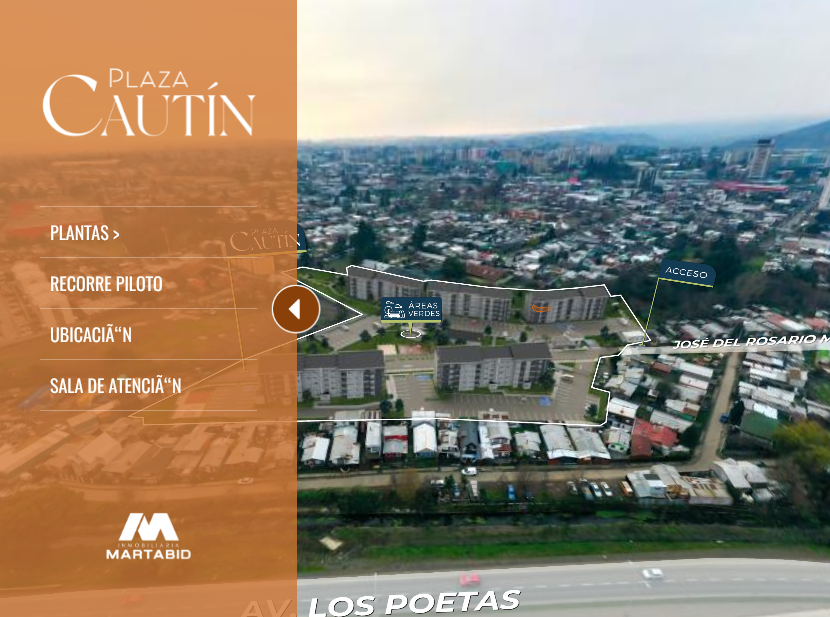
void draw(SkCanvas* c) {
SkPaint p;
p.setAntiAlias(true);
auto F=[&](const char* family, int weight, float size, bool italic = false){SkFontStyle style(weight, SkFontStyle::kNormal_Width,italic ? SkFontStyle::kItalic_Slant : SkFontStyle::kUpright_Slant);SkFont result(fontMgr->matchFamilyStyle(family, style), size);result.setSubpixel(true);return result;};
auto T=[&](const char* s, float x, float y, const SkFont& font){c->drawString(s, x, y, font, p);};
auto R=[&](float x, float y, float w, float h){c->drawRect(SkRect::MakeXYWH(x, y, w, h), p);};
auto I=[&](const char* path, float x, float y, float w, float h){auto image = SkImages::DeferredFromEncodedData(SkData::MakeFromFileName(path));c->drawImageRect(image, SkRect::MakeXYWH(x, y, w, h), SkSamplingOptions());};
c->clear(0xffffffff);
I("1.png",0,0,830,617);
p.setColor(0x4dffffff);
R(0,0,297,617);
p.setColor(0xb3ca6418);
R(0,0,297,617);
I("2.png",42,68,214,69);
p.setColor(0x4dffffff);
R(40,206,217,1);
auto f1 = F("Oswald",400,18);
p.setColor(0xffffffff);
T("PLANTAS >",50,240,f1);
p.setColor(0x4dffffff);
R(40,257,217,1);
p.setColor(0xffffffff);
T("RECORRE PILOTO",50,291,f1);
p.setColor(0x4dffffff);
R(40,308,217,1);
p.setColor(0xffffffff);
T("UBICACIÃ“N",50,342,f1);
p.setColor(0x4dffffff);
R(40,359,217,1);
p.setColor(0xffffffff);
T("SALA DE ATENCIÃ“N",50,393,f1);
p.setColor(0x4dffffff);
R(40,410,217,1);
I("3.png",106,512,85,48);
I("4.png",271,284,50,50);
}
